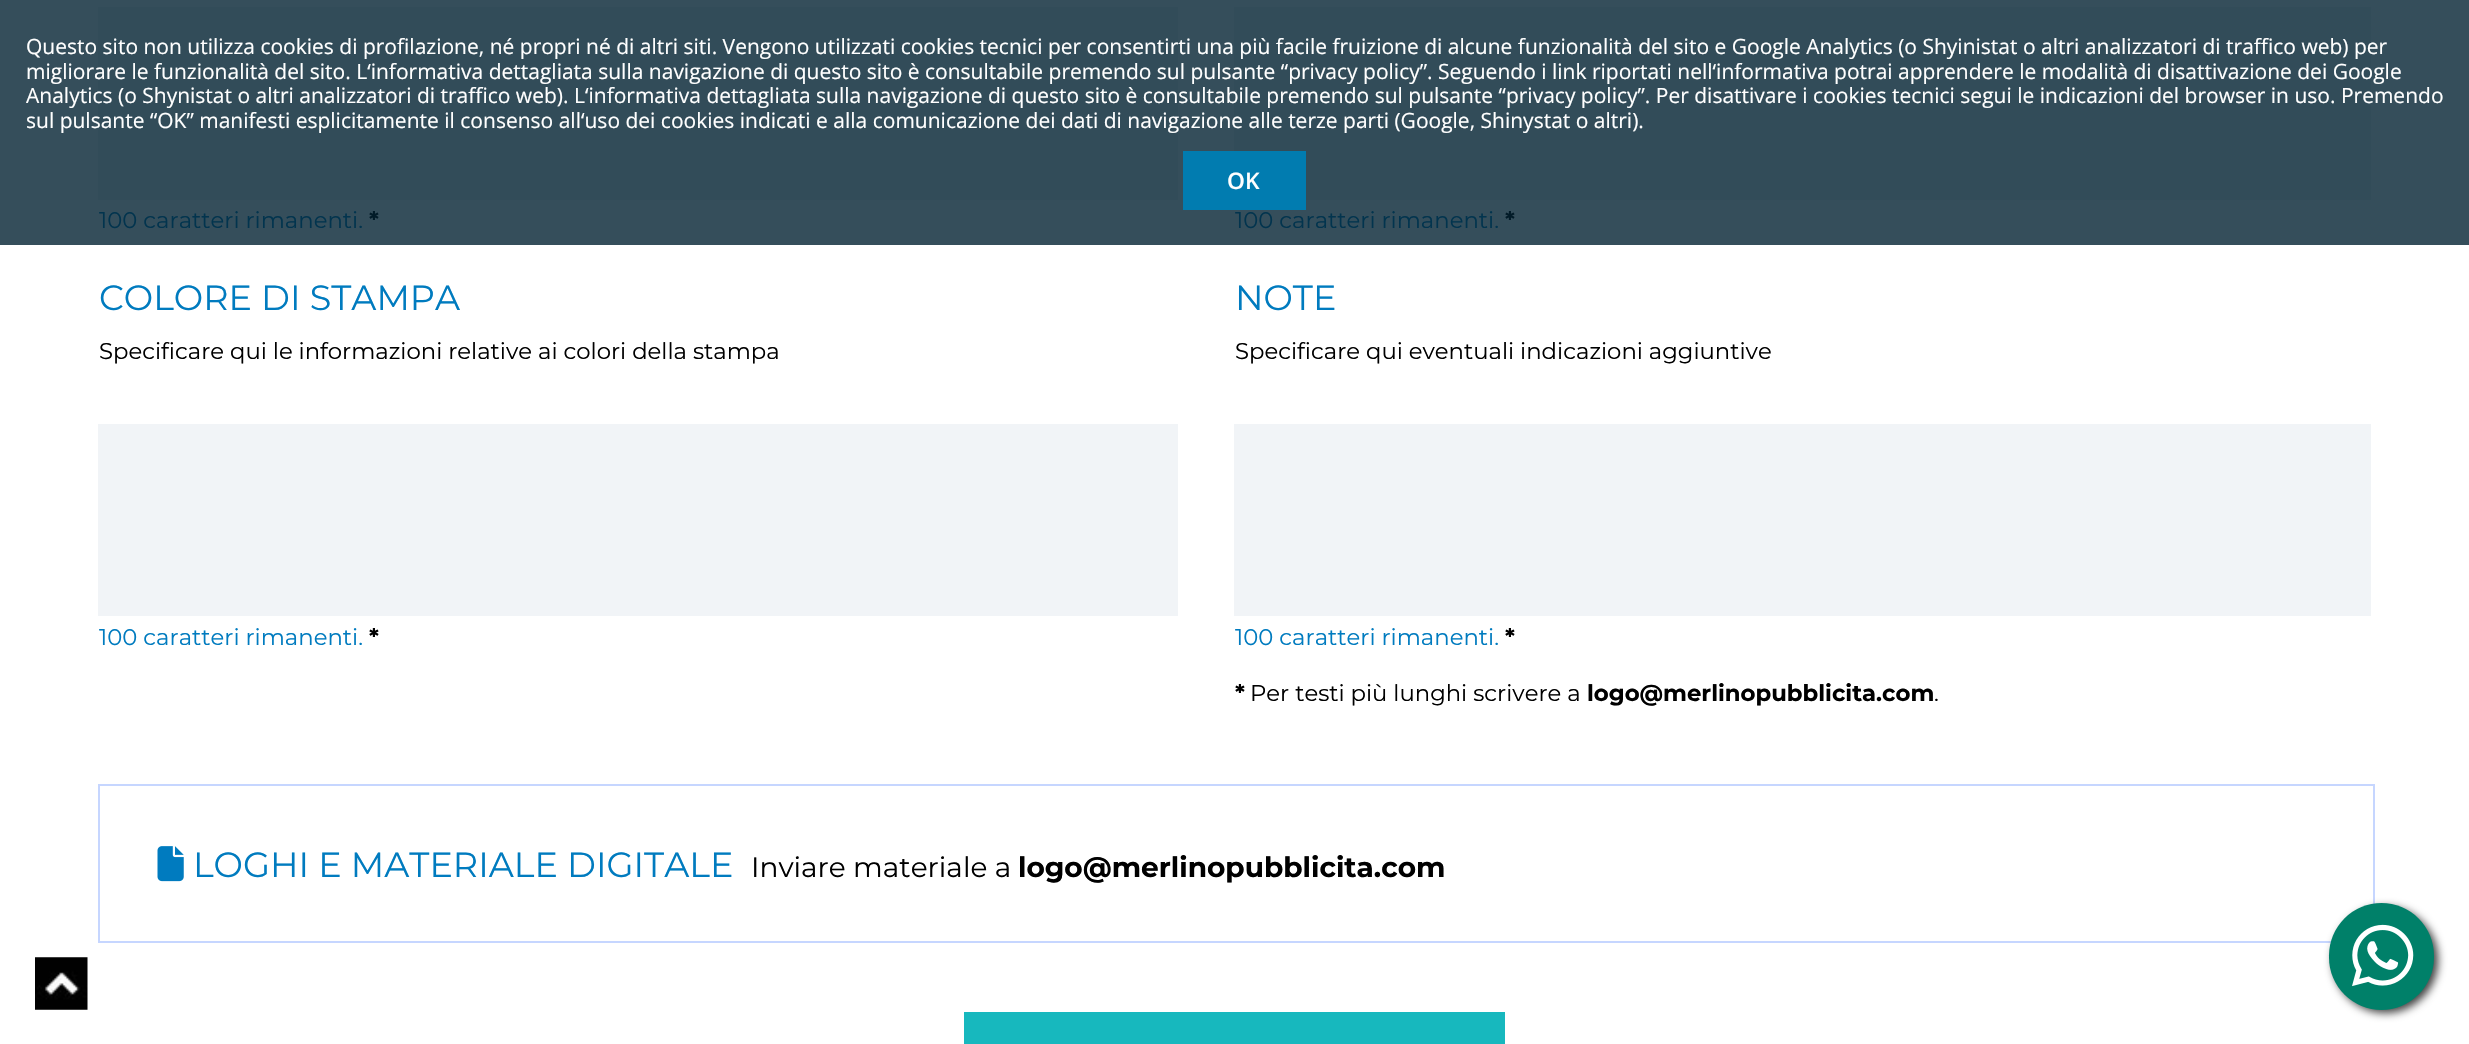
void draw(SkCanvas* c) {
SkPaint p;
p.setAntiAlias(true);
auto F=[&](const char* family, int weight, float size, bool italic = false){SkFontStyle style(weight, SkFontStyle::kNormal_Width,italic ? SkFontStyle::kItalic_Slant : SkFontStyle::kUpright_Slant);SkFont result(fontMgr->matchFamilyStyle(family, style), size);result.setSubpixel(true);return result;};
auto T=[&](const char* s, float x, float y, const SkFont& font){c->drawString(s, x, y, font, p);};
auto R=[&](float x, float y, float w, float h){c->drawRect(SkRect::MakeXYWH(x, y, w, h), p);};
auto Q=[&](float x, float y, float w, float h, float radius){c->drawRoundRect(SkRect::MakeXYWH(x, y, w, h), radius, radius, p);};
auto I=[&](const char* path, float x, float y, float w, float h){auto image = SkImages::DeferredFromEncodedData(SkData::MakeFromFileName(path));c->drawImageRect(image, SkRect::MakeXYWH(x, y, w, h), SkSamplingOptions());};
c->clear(0xffffffff);
p.setColor(0xff354e5b);
R(0,0,2469,245);
p.setColor(0xff324c59);
R(98,7,1080,193);
R(1234,7,1137,193);
auto f1 = F("Open Sans",400,21);
p.setColor(0xffffffff);
T("Questo sito non utilizza cookies di profilazione, né propri né di altri siti. Vengono utilizzati cookies tecnici per consentirti una più facile fruizione di alcune funzionalità del sito e Google Analytics (o Shyinistat o altri analizzatori di traffico web) per",26,54,f1);
T("migliorare le funzionalità del sito. L‘informativa dettagliata sulla navigazione di questo sito è consultabile premendo sul pulsante “privacy policy”. Seguendo i link riportati nell‘informativa potrai apprendere le modalità di disattivazione dei Google",26,79,f1);
T("Analytics (o Shynistat o altri analizzatori di traffico web). L‘informativa dettagliata sulla navigazione di questo sito è consultabile premendo sul pulsante “privacy policy”. Per disattivare i cookies tecnici segui le indicazioni del browser in uso. Premendo",26,103,f1);
T("sul pulsante “OK” manifesti esplicitamente il consenso all‘uso dei cookies indicati e alla comunicazione dei dati di navigazione alle terze parti (Google, Shinystat o altri).",26,128,f1);
p.setColor(0xff017cb0);
R(1183,151,123,59);
auto f2 = F("Open Sans",600,22.75);
p.setColor(0xffffffff);
T("OK",1227,189,f2);
auto f3 = F("Montserrat",400,22.75);
p.setColor(0xff02344e);
T("100 caratteri rimanenti.",99,228,f3);
auto f4 = F("Montserrat",700,22.75);
p.setColor(0xff021b28);
T("*",369,228,f4);
auto f5 = F("Montserrat",400,35);
p.setColor(0xff007bbf);
T("COLORE DI STAMPA",99,310,f5);
p.setColor(0xff000000);
T("Specificare qui le informazioni relative ai colori della stampa",99,359,f3);
p.setColor(0xfff1f4f7);
R(98,424,1080,192);
p.setColor(0xff007bbf);
T("100 caratteri rimanenti.",99,645,f3);
p.setColor(0xff000000);
T("*",369,645,f4);
p.setColor(0xff02344e);
T("100 caratteri rimanenti.",1235,228,f3);
p.setColor(0xff021b28);
T("*",1505,228,f4);
p.setColor(0xff007bbf);
T("NOTE",1235,310,f5);
p.setColor(0xff000000);
T("Specificare qui eventuali indicazioni aggiuntive",1235,359,f3);
p.setColor(0xfff1f4f7);
R(1234,424,1137,192);
p.setColor(0xff007bbf);
T("100 caratteri rimanenti.",1235,645,f3);
p.setColor(0xff000000);
T("*",1505,645,f4);
T("*",1235,701,f4);
T("Per testi più lunghi scrivere a",1250,701,f3);
T("logo@merlinopubblicita.com",1587,701,f4);
T(".",1934,701,f3);
p.setStroke(true);
p.setStrokeWidth(2);
p.setColor(0xffc6d6ff);
c->drawRect(SkRect::MakeXYWH(99,785,2275,157),p);
I("1.png",157,846,27,36);
p.setStroke(false);
p.setColor(0xff007bbf);
T("LOGHI E MATERIALE DIGITALE",193,877,f5);
auto f6 = F("Montserrat",400,28);
p.setColor(0xff000000);
T("Inviare materiale a",751,877,f6);
auto f7 = F("Montserrat",700,28);
T("logo@merlinopubblicita.com",1018,877,f7);
p.setColor(0xff17b8be);
R(964,1012,541,32);
I("2.png",35,957,53,53);
p.setColor(0xbf000000);
p.setMaskFilter(SkMaskFilter::MakeBlur(kNormal_SkBlurStyle, 4.5));
c->drawRoundRect(SkRect::MakeXYWH(2333,907,105,106),52.5,52.5,p);
p.setMaskFilter(nullptr);
p.setColor(0xff008069);
Q(2329,903,105,107,52.5);
I("3.png",2352,924,62,63);
}
